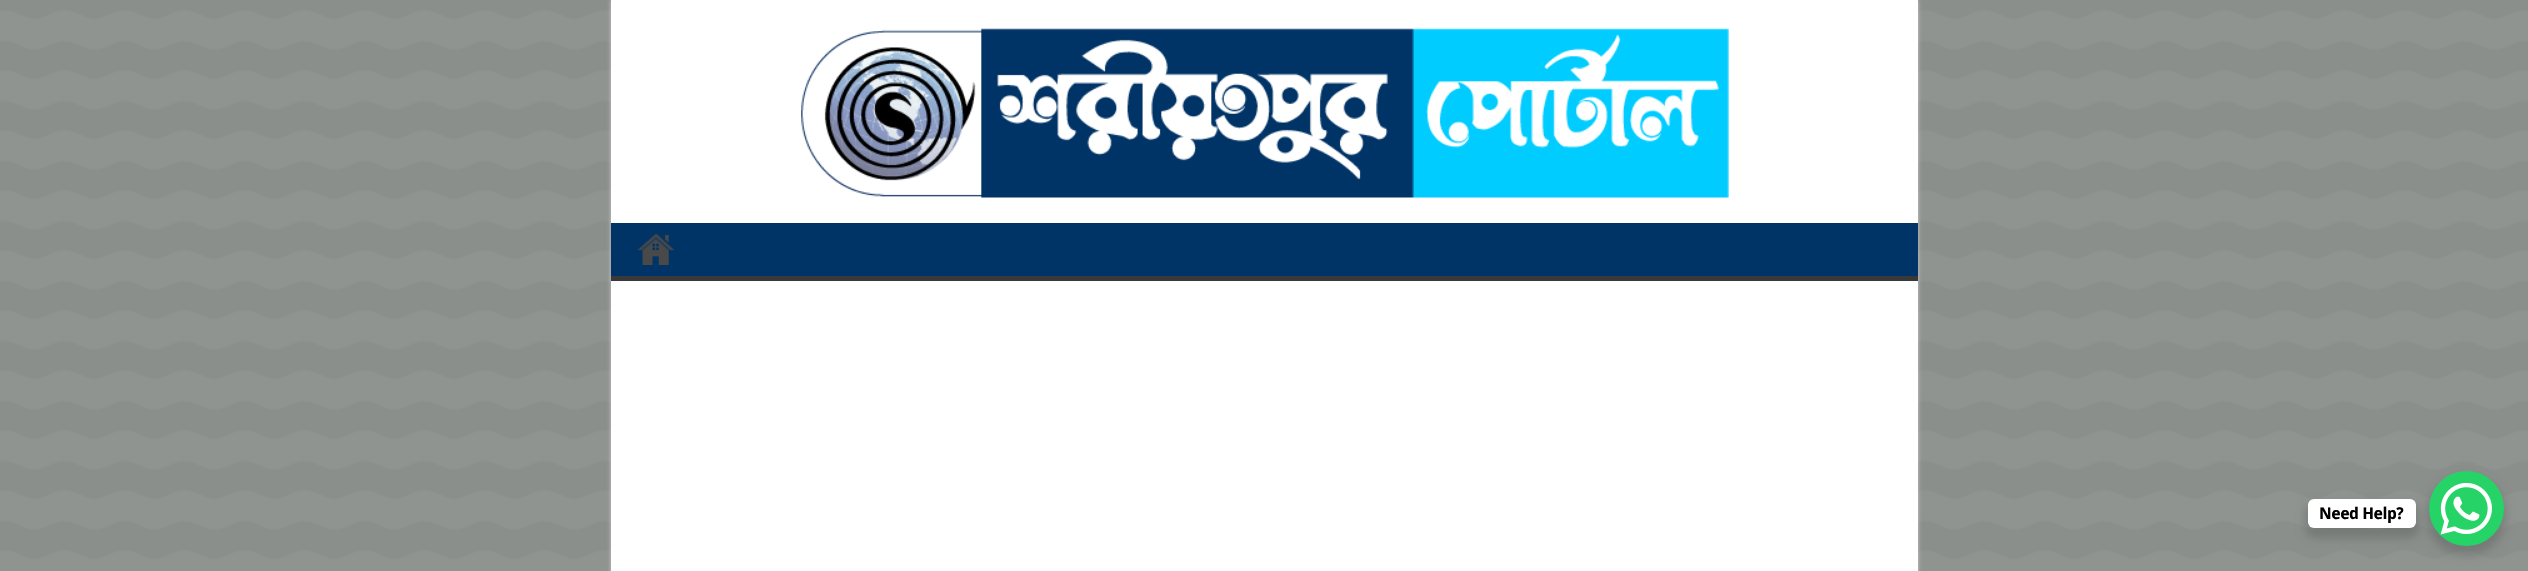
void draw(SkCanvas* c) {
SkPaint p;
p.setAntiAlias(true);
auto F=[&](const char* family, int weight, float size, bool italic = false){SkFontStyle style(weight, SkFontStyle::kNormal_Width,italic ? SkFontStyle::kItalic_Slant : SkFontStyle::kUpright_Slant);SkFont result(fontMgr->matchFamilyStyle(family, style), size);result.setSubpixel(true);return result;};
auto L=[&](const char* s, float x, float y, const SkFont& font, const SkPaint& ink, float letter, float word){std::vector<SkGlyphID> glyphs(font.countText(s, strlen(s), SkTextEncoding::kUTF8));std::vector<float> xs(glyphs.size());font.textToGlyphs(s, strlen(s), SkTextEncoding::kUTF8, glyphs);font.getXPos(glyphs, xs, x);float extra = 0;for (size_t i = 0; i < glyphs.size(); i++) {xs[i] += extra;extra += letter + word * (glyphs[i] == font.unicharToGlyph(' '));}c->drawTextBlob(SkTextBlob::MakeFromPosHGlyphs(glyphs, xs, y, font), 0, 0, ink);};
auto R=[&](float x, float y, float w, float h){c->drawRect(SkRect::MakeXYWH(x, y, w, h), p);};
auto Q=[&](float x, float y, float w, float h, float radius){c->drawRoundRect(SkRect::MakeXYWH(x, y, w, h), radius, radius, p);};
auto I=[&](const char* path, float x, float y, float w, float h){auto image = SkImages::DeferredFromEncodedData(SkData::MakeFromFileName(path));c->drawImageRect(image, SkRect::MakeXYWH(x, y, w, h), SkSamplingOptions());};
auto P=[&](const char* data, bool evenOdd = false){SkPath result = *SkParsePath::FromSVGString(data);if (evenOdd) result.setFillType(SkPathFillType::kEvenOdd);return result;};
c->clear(0xff727874);
I("1.png",0,0,2528,571);
p.setColor(0xffcacaca);
p.setMaskFilter(SkMaskFilter::MakeBlur(kNormal_SkBlurStyle, 2));
c->drawRect(SkRect::MakeXYWH(611,0,1307,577),p);
p.setMaskFilter(nullptr);
p.setColor(0xffffffff);
R(611,0,1307,571);
I("2.png",801,28,928,170);
p.setColor(0xff003366);
R(611,223,1307,53);
c->save();
c->clipRect(SkRect::MakeXYWH(611,223,1307,58));
p.setColor(0xff393939);
c->drawPath(P("M488 99h1553v306h-1553zm122 116h1306c1 0 2 1 2 1v59c0 1-1 1-2 1h-1306c-1 0-1 0-1-1v-59c0 0 0-1 1-1z",true),p);
c->restore();
I("3.png",637,233,38,32);
p.setColor(0x26000000);
p.setMaskFilter(SkMaskFilter::MakeBlur(kNormal_SkBlurStyle, 5));
c->drawRoundRect(SkRect::MakeXYWH(2426,476,80,80),40,40,p);
p.setMaskFilter(nullptr);
p.setColor(0xff25d366);
c->drawCircle(2466.5,508.5,37.5,p);
p.setColor(0x26000000);
p.setMaskFilter(SkMaskFilter::MakeBlur(kNormal_SkBlurStyle, 5));
c->drawRoundRect(SkRect::MakeXYWH(2305,504,114,34),9,9,p);
p.setMaskFilter(nullptr);
p.setColor(0xffffffff);
Q(2308,499,108,29,6);
auto f1 = F("Droid Sans",700,16.25);
p.setColor(0xff000000);
L("Need Help?",2319,519,f1,p,-.5,0);
I("4.png",2440,482,52,53);
}
